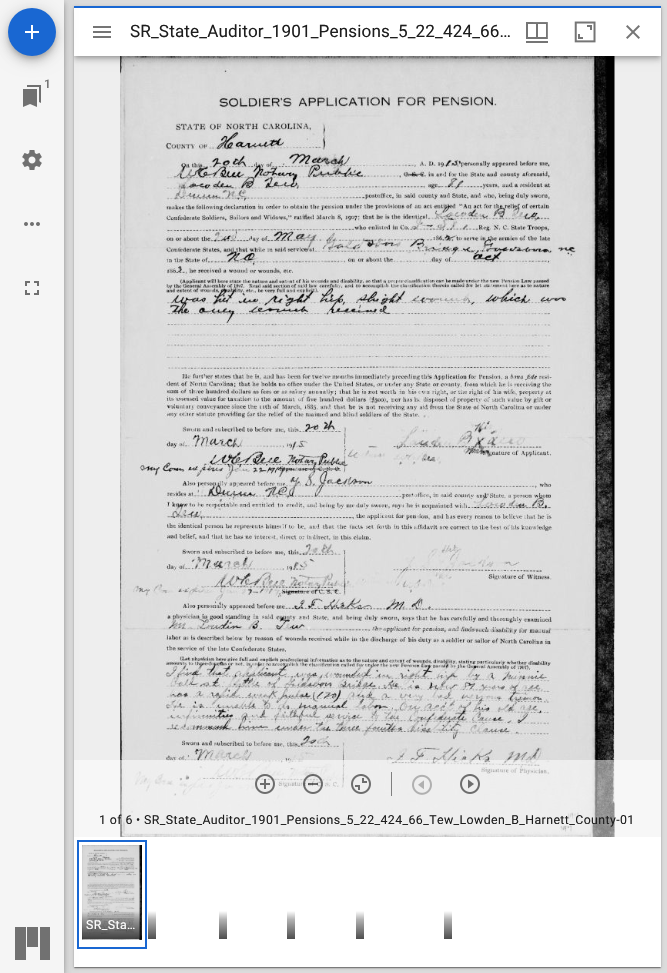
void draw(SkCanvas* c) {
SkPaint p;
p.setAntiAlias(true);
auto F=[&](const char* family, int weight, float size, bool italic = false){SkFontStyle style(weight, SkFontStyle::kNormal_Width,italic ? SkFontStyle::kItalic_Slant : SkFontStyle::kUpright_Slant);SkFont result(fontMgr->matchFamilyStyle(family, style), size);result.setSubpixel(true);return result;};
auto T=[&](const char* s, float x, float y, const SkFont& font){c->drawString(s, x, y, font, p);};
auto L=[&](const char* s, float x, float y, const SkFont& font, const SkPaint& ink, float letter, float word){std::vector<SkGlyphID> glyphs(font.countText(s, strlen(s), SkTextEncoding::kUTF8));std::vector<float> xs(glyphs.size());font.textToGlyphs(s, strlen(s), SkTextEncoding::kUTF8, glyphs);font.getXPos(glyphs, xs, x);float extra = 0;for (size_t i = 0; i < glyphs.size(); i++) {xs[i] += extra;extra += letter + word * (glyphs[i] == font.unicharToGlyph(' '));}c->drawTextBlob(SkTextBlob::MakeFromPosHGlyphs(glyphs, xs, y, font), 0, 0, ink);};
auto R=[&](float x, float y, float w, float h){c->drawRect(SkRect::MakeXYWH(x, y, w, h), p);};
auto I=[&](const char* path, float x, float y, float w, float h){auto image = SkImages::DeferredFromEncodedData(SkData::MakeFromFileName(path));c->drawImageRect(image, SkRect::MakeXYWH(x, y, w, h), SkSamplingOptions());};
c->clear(0xffdcdcdc);
p.setColor(0x33000000);
p.setMaskFilter(SkMaskFilter::MakeBlur(kNormal_SkBlurStyle, .5));
c->drawRect(SkRect::MakeXYWH(75,9,585,959),p);
p.setMaskFilter(nullptr);
p.setMaskFilter(SkMaskFilter::MakeBlur(kNormal_SkBlurStyle, .5));
c->drawRect(SkRect::MakeXYWH(74,7,587,961),p);
p.setMaskFilter(nullptr);
p.setMaskFilter(SkMaskFilter::MakeBlur(kNormal_SkBlurStyle, 1.5));
c->drawRect(SkRect::MakeXYWH(74,7,587,961),p);
p.setMaskFilter(nullptr);
p.setColor(0xffeeeeee);
R(74,56,587,781);
I("10.png",120,56,495,781);
c->save();
c->clipRect(SkRect::MakeXYWH(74,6,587,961));
p.setColor(0x1f000000);
p.setMaskFilter(SkMaskFilter::MakeBlur(kNormal_SkBlurStyle, 5));
c->drawRect(SkRect::MakeXYWH(74,7,587,50),p);
p.setMaskFilter(nullptr);
p.setColor(0x24000000);
p.setMaskFilter(SkMaskFilter::MakeBlur(kNormal_SkBlurStyle, 2.5));
c->drawRect(SkRect::MakeXYWH(74,10,587,50),p);
p.setMaskFilter(nullptr);
c->restore();
p.setColor(0x33000000);
p.setMaskFilter(SkMaskFilter::MakeBlur(kNormal_SkBlurStyle, 2));
c->drawRect(SkRect::MakeXYWH(75,9,585,48),p);
p.setMaskFilter(nullptr);
p.setColor(0xffffffff);
R(74,8,587,48);
p.setColor(0xff1967d2);
R(74,6,587,2);
p.setColor(0x80ffffff);
R(74,760,587,77);
p.setColor(0xffffffff);
R(74,837,587,130);
p.setStroke(true);
p.setStrokeWidth(2);
p.setColor(0xff1967d2);
c->drawRect(SkRect::MakeXYWH(78,841,68,107),p);
p.setStroke(false);
p.setColor(0x1f000000);
p.setMaskFilter(SkMaskFilter::MakeBlur(kNormal_SkBlurStyle, 5));
c->drawRect(SkRect::MakeXYWH(0,1,64,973),p);
p.setMaskFilter(nullptr);
p.setColor(0x24000000);
p.setMaskFilter(SkMaskFilter::MakeBlur(kNormal_SkBlurStyle, 2.5));
c->drawRect(SkRect::MakeXYWH(0,4,64,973),p);
p.setMaskFilter(nullptr);
p.setColor(0x33000000);
p.setMaskFilter(SkMaskFilter::MakeBlur(kNormal_SkBlurStyle, 2));
c->drawRect(SkRect::MakeXYWH(1,3,62,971),p);
p.setMaskFilter(nullptr);
p.setColor(0xfff5f5f5);
R(0,0,64,973);
p.setColor(0x1f000000);
p.setMaskFilter(SkMaskFilter::MakeBlur(kNormal_SkBlurStyle, 9));
c->drawRoundRect(SkRect::MakeXYWH(8,9,48,48),24,24,p);
p.setMaskFilter(nullptr);
p.setColor(0x24000000);
p.setMaskFilter(SkMaskFilter::MakeBlur(kNormal_SkBlurStyle, 5));
c->drawRoundRect(SkRect::MakeXYWH(8,14,48,48),24,24,p);
p.setMaskFilter(nullptr);
p.setColor(0x33000000);
p.setMaskFilter(SkMaskFilter::MakeBlur(kNormal_SkBlurStyle, 2.5));
c->drawRoundRect(SkRect::MakeXYWH(9,12,46,46),23,23,p);
p.setMaskFilter(nullptr);
p.setColor(0xff1967d2);
c->drawCircle(32,32,24,p);
I("1.png",25,25,14,14);
auto f1 = F("Roboto",500,12);
p.setColor(0xff717171);
T("1",44,88,f1);
I("2.png",23,85,18,22);
I("3.png",22,150,20,20);
I("4.png",24,222,16,4);
I("5.png",25,281,14,14);
R(15,927,11,33);
R(40,927,10,33);
R(27,927,11,20);
I("6.png",93,26,18,12);
auto f2 = F("Roboto",400,17.1);
p.setColor(0xff1e1e1e);
L("SR_State_Auditor_1901_Pensions_5_22_424_66…",130,37,f2,p,.15,0);
I("7.png",526,22,22,21);
I("8.png",574,21,22,22);
I("9.png",626,25,14,14);
I("11.png",255,774,20,20);
I("12.png",303,774,20,20);
I("13.png",351,774,20,20);
p.setColor(0xff808080);
R(391,772,1,24);
I("14.png",412,774,20,21);
I("15.png",460,774,20,20);
auto f3 = F("Roboto",400,12.35);
p.setColor(0xff1e1e1e);
L("1 of 6",99,824,f3,p,.4,0);
L("• SR_State_Auditor_1901_Pensions_5_22_424_66_Tew_Lowden_B_Harnett_County-01",136,824,f3,p,.4,0);
I("16.png",82,845,60,95);
p.setColor(0xffffffff);
L("SR_Sta…",86,929,f3,p,.4,0);
{
const SkColor colors[] = {0xff4d4d4d,0xffb3b3b3,0xffffffff};
const float stops[] = {0,.7,1};
const SkPoint ends[] = {{152,939}, {152,911}};
p.setShader(SkGradientShader::MakeLinear(ends, colors, stops, 3, SkTileMode::kClamp));
p.setAlpha(255);
}
R(148,911,8,28);
{
const SkColor colors[] = {0xff4d4d4d,0xffb3b3b3,0xffffffff};
const float stops[] = {0,.7,1};
const SkPoint ends[] = {{223,939}, {223,911}};
p.setShader(SkGradientShader::MakeLinear(ends, colors, stops, 3, SkTileMode::kClamp));
p.setAlpha(255);
}
R(219,911,8,28);
{
const SkColor colors[] = {0xff4d4d4d,0xffb3b3b3,0xffffffff};
const float stops[] = {0,.7,1};
const SkPoint ends[] = {{291,939}, {291,911}};
p.setShader(SkGradientShader::MakeLinear(ends, colors, stops, 3, SkTileMode::kClamp));
p.setAlpha(255);
}
R(287,911,8,28);
{
const SkColor colors[] = {0xff4d4d4d,0xffb3b3b3,0xffffffff};
const float stops[] = {0,.7,1};
const SkPoint ends[] = {{360,939}, {360,911}};
p.setShader(SkGradientShader::MakeLinear(ends, colors, stops, 3, SkTileMode::kClamp));
p.setAlpha(255);
}
R(356,911,8,28);
{
const SkColor colors[] = {0xff4d4d4d,0xffb3b3b3,0xffffffff};
const float stops[] = {0,.7,1};
const SkPoint ends[] = {{448,939}, {448,911}};
p.setShader(SkGradientShader::MakeLinear(ends, colors, stops, 3, SkTileMode::kClamp));
p.setAlpha(255);
}
R(444,911,8,28);
}
